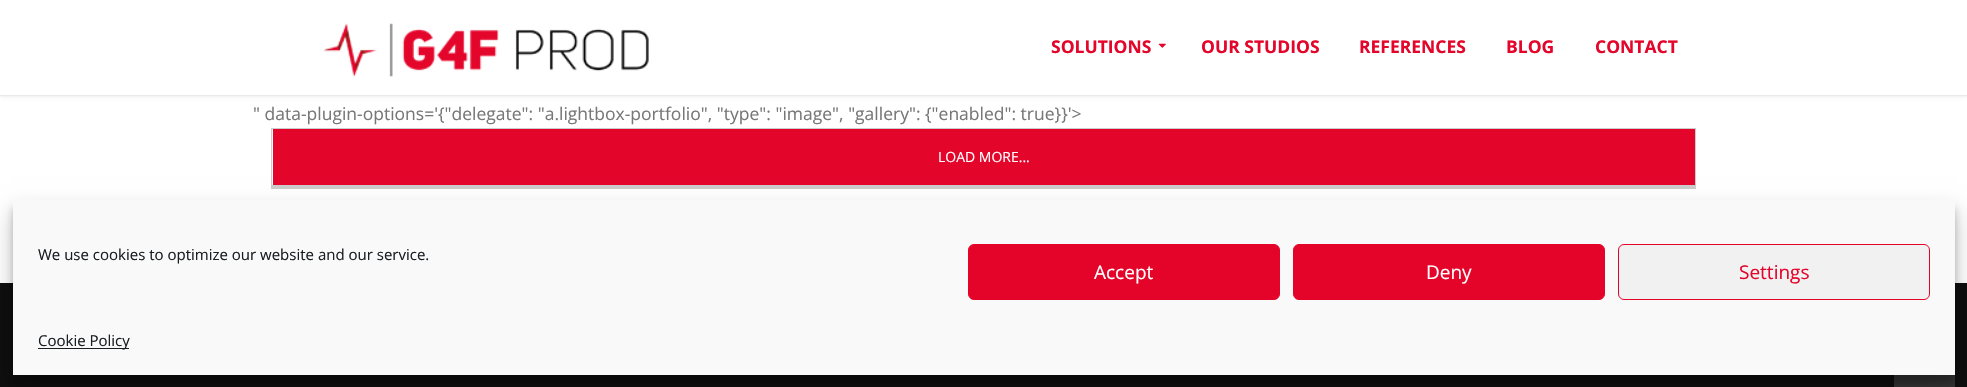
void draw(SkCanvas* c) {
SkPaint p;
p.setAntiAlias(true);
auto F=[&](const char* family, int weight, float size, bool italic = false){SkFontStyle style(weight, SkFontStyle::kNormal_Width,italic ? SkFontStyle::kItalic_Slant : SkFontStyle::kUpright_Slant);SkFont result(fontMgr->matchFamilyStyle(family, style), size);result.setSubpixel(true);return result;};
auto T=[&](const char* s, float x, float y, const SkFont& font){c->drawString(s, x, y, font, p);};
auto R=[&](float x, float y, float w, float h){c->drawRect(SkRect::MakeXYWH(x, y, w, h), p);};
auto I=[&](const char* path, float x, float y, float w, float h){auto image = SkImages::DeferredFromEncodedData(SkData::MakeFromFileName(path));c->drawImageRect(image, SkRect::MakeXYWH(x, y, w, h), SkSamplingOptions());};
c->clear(0xffffffff);
p.setColor(0x1a000000);
p.setMaskFilter(SkMaskFilter::MakeBlur(kNormal_SkBlurStyle, 2));
c->drawRect(SkRect::MakeXYWH(0,-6,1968,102),p);
p.setMaskFilter(nullptr);
p.setColor(0xffffffff);
R(0,0,1967,95);
p.setColor(0xffe9e9e9);
R(0,95,1967,1);
I("1.png",323,23,326,54);
auto f1 = F("Open Sans",700,17.5);
p.setColor(0xffe4052b);
T("SOLUTIONS",1051,53,f1);
I("2.png",1158,43,8,5);
T("OUR STUDIOS",1201,53,f1);
T("REFERENCES",1359,53,f1);
T("BLOG",1506,53,f1);
T("CONTACT",1595,53,f1);
auto f2 = F("Open Sans",400,17.5);
p.setColor(0xff777777);
T("\" data-plugin-options='{\"delegate\": \"a.lightbox-portfolio\", \"type\": \"image\", \"gallery\": {\"enabled\": true}}'>",253,120,f2);
p.setColor(0xffe4052b);
R(273,129,1422,56);
p.setColor(0xffcccccc);
R(271,128,1425,1);
R(1695,128,1,61);
R(271,185,1425,4);
R(271,128,1,61);
auto f3 = F("Open Sans",400,14);
p.setColor(0xffffffff);
T("LOAD MORE...",938,162,f3);
p.setColor(0xff0e0e0e);
R(0,283,1967,104);
p.setColor(0xff343434);
R(1894,375,61,12);
p.setColor(0x3b000000);
p.setMaskFilter(SkMaskFilter::MakeBlur(kNormal_SkBlurStyle, 4));
c->drawRect(SkRect::MakeXYWH(13,208,1942,175),p);
p.setMaskFilter(nullptr);
p.setColor(0x30000000);
p.setMaskFilter(SkMaskFilter::MakeBlur(kNormal_SkBlurStyle, 12.5));
c->drawRect(SkRect::MakeXYWH(13,213,1942,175),p);
p.setMaskFilter(nullptr);
p.setColor(0xfff9f9f9);
R(13,200,1942,175);
auto f4 = F("Open Sans",400,15);
p.setColor(0xff191e23);
T("We use cookies to optimize our website and our service.",38,260,f4);
p.setColor(0xffe4042a);
c->drawRoundRect(SkRect::MakeXYWH(968.5,244.5,311,55),5.5,5.5,p);
p.setStroke(true);
p.setStrokeWidth(1);
c->drawRoundRect(SkRect::MakeXYWH(968.5,244.5,311,55),5.5,5.5,p);
auto f5 = F("Open Sans",400,19);
p.setStroke(false);
p.setColor(0xffffffff);
T("Accept",1094,279,f5);
p.setColor(0xffe4042a);
c->drawRoundRect(SkRect::MakeXYWH(1293.5,244.5,311,55),5.5,5.5,p);
p.setStroke(true);
c->drawRoundRect(SkRect::MakeXYWH(1293.5,244.5,311,55),5.5,5.5,p);
p.setStroke(false);
p.setColor(0xffffffff);
T("Deny",1426,279,f5);
p.setColor(0xfff1f1f1);
c->drawRoundRect(SkRect::MakeXYWH(1618.5,244.5,311,55),5.5,5.5,p);
p.setStroke(true);
p.setColor(0xffe4042a);
c->drawRoundRect(SkRect::MakeXYWH(1618.5,244.5,311,55),5.5,5.5,p);
p.setStroke(false);
p.setColor(0xffe4052b);
T("Settings",1739,279,f5);
p.setColor(0xff191e23);
R(38,348,91,1);
T("Cookie Policy",38,346,f4);
}
